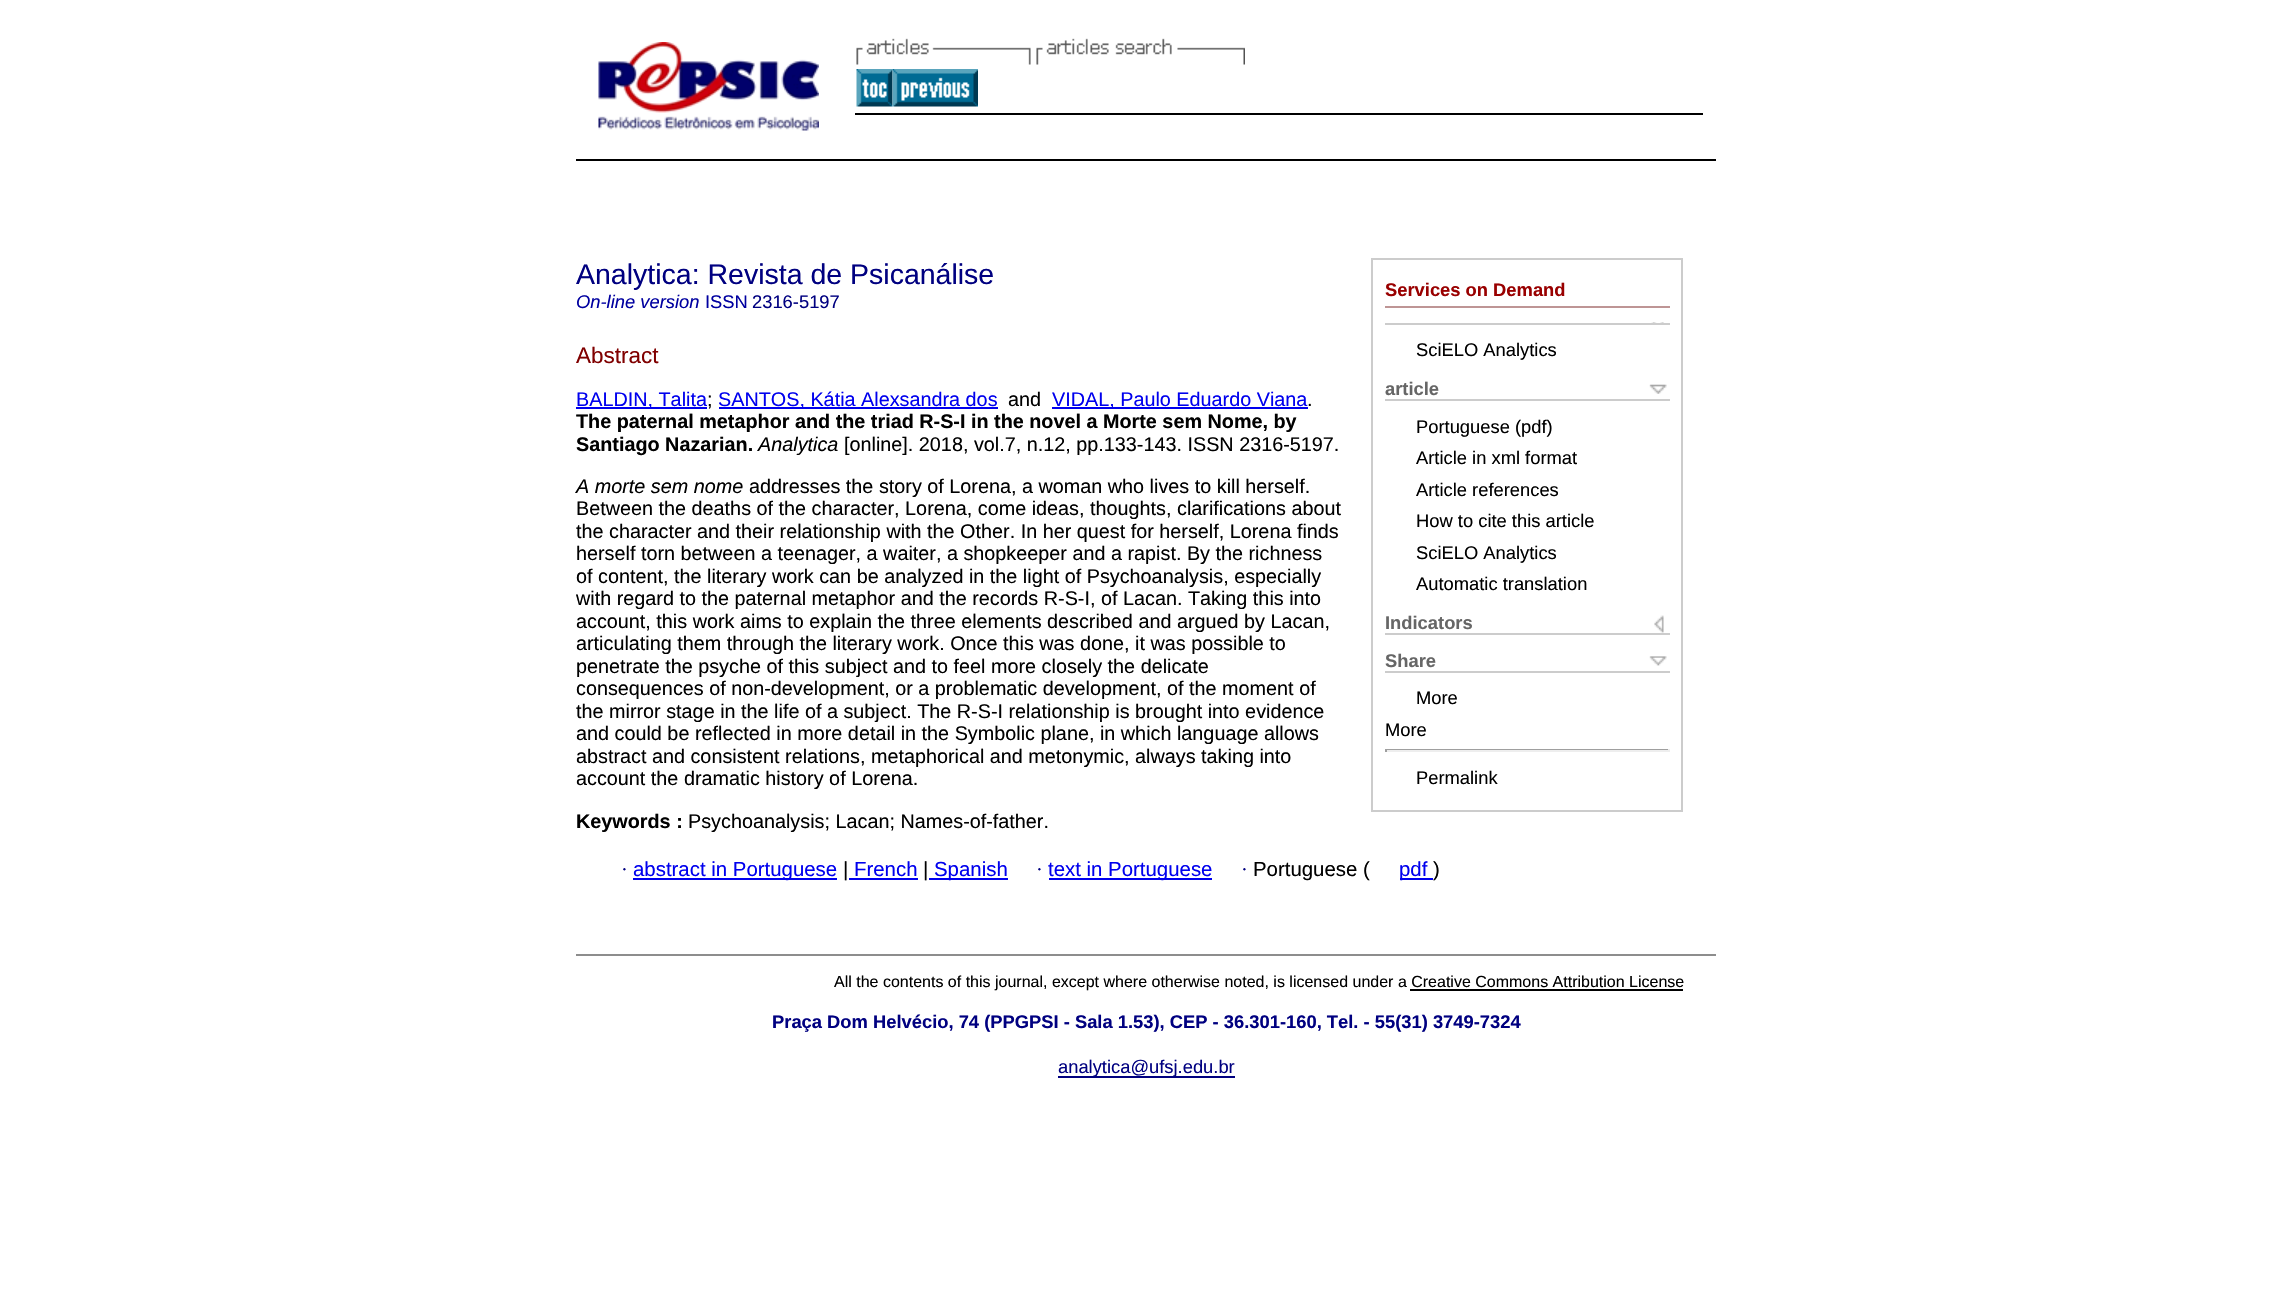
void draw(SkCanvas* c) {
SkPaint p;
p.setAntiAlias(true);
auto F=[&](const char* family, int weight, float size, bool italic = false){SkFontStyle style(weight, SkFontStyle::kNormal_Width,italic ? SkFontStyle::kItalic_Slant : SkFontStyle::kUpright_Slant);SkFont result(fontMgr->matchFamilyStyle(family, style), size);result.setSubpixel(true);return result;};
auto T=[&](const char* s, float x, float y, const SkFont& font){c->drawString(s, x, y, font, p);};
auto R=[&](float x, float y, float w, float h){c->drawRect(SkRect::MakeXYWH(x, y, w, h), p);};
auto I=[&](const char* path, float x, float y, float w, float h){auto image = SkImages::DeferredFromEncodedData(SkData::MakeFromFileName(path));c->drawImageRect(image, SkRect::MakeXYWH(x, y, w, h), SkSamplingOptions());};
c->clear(0xffffffff);
p.setColor(0xff000000);
R(576,159,1140,2);
I("1.png",598,42,221,89);
R(855,113,848,2);
I("2.png",856,38,175,27);
I("3.png",1036,38,209,27);
I("4.png",856,69,37,38);
I("5.png",892,69,86,38);
p.setColor(0xff8d8d8d);
R(576,954,1140,2);
auto f1 = F("Liberation Sans",400,28.5);
p.setColor(0xff000080);
T("Analytica: Revista de Psicanálise",576,284,f1);
auto f2 = F("Liberation Sans",400,18.35,true);
p.setColor(0xff0000a0);
T("On-line version",576,308,f2);
auto f3 = F("Liberation Sans",400,18.35);
T("ISSN",705,308,f3);
p.setColor(0xff000080);
T("2316-5197",752,308,f3);
p.setStroke(true);
p.setStrokeWidth(2);
p.setColor(0xffcccccc);
c->drawRect(SkRect::MakeXYWH(1372,259,310,552),p);
p.setStroke(false);
p.setColor(0xffbe9595);
R(1385,306,285,2);
auto f4 = F("Liberation Sans",700,18.35);
p.setColor(0xff990000);
T("Services on Demand",1385,296,f4);
I("6.png",1651,322,13,1);
p.setColor(0xffcccccc);
R(1385,323,285,2);
p.setColor(0xff000000);
T("SciELO Analytics",1416,356,f3);
I("7.png",1649,384,18,10);
p.setColor(0xffcccccc);
R(1385,399,285,2);
p.setColor(0xff666666);
T("article",1385,395,f4);
p.setColor(0xff000000);
T("Portuguese (pdf)",1416,433,f3);
T("Article in xml format",1416,464,f3);
T("Article references",1416,496,f3);
T("How to cite this article",1416,527,f3);
T("SciELO Analytics",1416,559,f3);
T("Automatic translation",1416,590,f3);
I("8.png",1654,615,10,18);
p.setColor(0xffcccccc);
R(1385,633,285,2);
p.setColor(0xff666666);
T("Indicators",1385,629,f4);
I("9.png",1649,656,18,10);
p.setColor(0xffcccccc);
R(1385,671,285,2);
p.setColor(0xff666666);
T("Share",1385,667,f4);
p.setColor(0xff000000);
T("More",1416,704,f3);
T("More",1385,736,f3);
p.setColor(0xff9f9f9f);
R(1385,749,285,1);
p.setColor(0xffeeeeee);
R(1668,749,2,3);
R(1385,750,285,2);
p.setColor(0xff9f9f9f);
R(1385,749,2,3);
p.setColor(0xff000000);
T("Permalink",1416,784,f3);
auto f5 = F("Liberation Sans",400,22.5);
p.setColor(0xff800000);
T("Abstract",576,363,f5);
p.setColor(0xff0000ee);
R(576,407,131,2);
auto f6 = F("Liberation Sans",400,19.8);
T("BALDIN, Talita",576,406,f6);
p.setColor(0xff000000);
T(";",707,406,f6);
p.setColor(0xff0000ee);
R(719,407,279,2);
T("SANTOS, Kátia Alexsandra dos",718,406,f6);
p.setColor(0xff000000);
T("and",1008,406,f6);
p.setColor(0xff0000ee);
R(1052,407,256,2);
T("VIDAL, Paulo Eduardo Viana",1052,406,f6);
p.setColor(0xff000000);
T(".",1307,406,f6);
auto f7 = F("Liberation Sans",700,19.8);
T("The paternal metaphor and the triad R-S-I in the novel a Morte sem Nome, by",576,428,f7);
T("Santiago Nazarian.",576,451,f7);
auto f8 = F("Liberation Sans",400,19.8,true);
T("Analytica",758,451,f8);
T("[online]. 2018, vol.7, n.12, pp.133-143. ISSN 2316-5197.",844,451,f6);
T("A morte sem nome",576,493,f8);
T("addresses the story of Lorena, a woman who lives to kill herself.",749,493,f6);
T("Between the deaths of the character, Lorena, come ideas, thoughts, clarifications about",576,515,f6);
T("the character and their relationship with the Other. In her quest for herself, Lorena finds",576,538,f6);
T("herself torn between a teenager, a waiter, a shopkeeper and a rapist. By the richness",576,560,f6);
T("of content, the literary work can be analyzed in the light of Psychoanalysis, especially",576,583,f6);
T("with regard to the paternal metaphor and the records R-S-I, of Lacan. Taking this into",576,605,f6);
T("account, this work aims to explain the three elements described and argued by Lacan,",576,628,f6);
T("articulating them through the literary work. Once this was done, it was possible to",576,650,f6);
T("penetrate the psyche of this subject and to feel more closely the delicate",576,673,f6);
T("consequences of non-development, or a problematic development, of the moment of",576,695,f6);
T("the mirror stage in the life of a subject. The R-S-I relationship is brought into evidence",576,718,f6);
T("and could be reflected in more detail in the Symbolic plane, in which language allows",576,740,f6);
T("abstract and consistent relations, metaphorical and metonymic, always taking into",576,763,f6);
T("account the dramatic history of Lorena.",576,785,f6);
T("Keywords :",576,828,f7);
T("Psychoanalysis; Lacan; Names-of-father.",688,828,f6);
auto f9 = F("Liberation Serif",400,20.4);
p.setColor(0xff000080);
T("·",621,876,f9);
p.setColor(0xff0000ee);
R(633,878,204,2);
auto f10 = F("Liberation Sans",400,20.4);
T("abstract in Portuguese",633,876,f10);
p.setColor(0xff000000);
T("|",843,876,f10);
p.setColor(0xff0000ee);
T("French",854,876,f10);
R(849,878,69,2);
p.setColor(0xff000000);
T("|",923,876,f10);
p.setColor(0xff0000ee);
R(929,878,79,2);
T("Spanish",934,876,f10);
p.setColor(0xff000080);
T("·",1036,876,f9);
p.setColor(0xff0000ee);
R(1049,878,163,2);
T("text in Portuguese",1048,876,f10);
p.setColor(0xff000080);
T("·",1241,876,f9);
p.setColor(0xff000000);
T("Portuguese (",1253,876,f10);
p.setColor(0xff0000ee);
R(1400,878,33,2);
T("pdf",1399,876,f10);
p.setColor(0xff000000);
T(")",1433,876,f10);
auto f11 = F("Liberation Sans",400,16);
T("All the contents of this journal, except where otherwise noted, is licensed under a Creative Commons Attribution License",834,987,f11);
R(1410,989,273,2);
p.setColor(0xff000080);
T("Praça Dom Helvécio, 74 (PPGPSI - Sala 1.53), CEP - 36.301-160, Tel. - 55(31) 3749-7324",772,1028,f4);
R(1058,1076,177,2);
T("analytica@ufsj.edu.br",1058,1073,f3);
}
